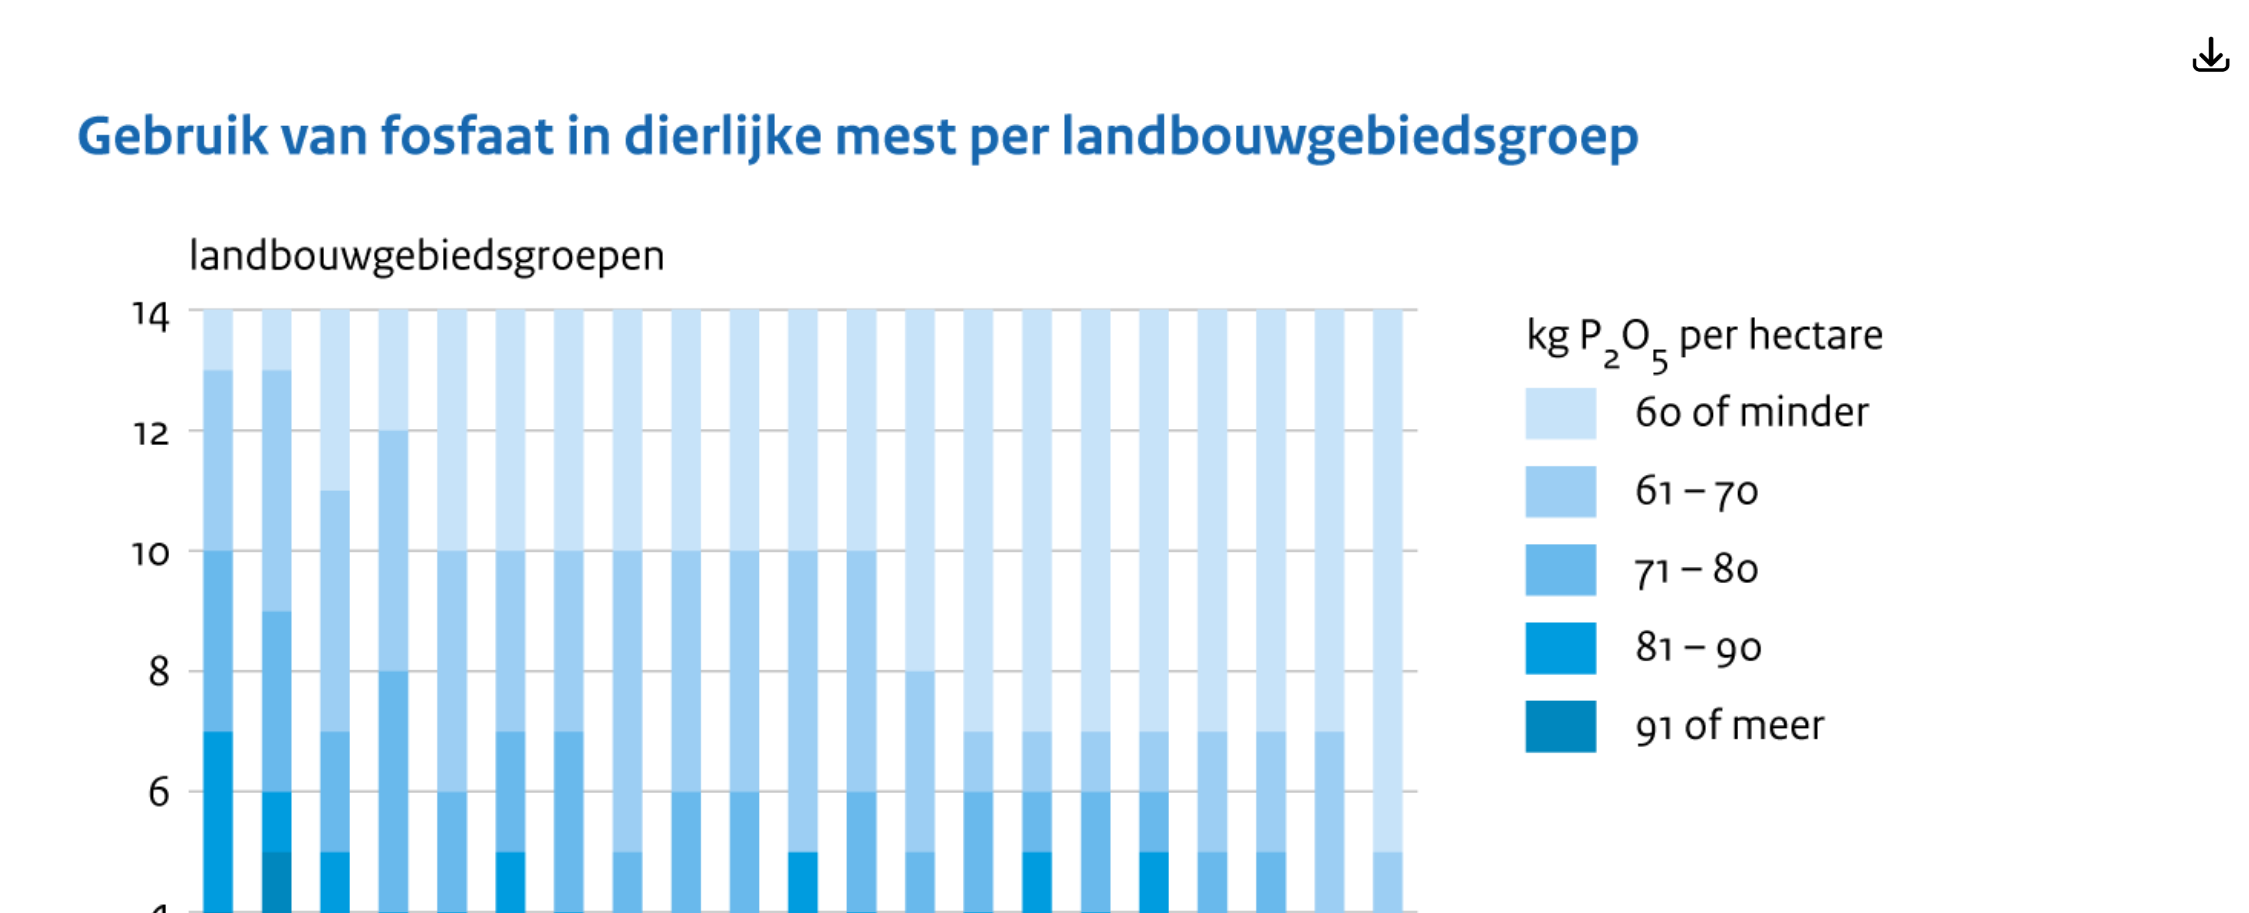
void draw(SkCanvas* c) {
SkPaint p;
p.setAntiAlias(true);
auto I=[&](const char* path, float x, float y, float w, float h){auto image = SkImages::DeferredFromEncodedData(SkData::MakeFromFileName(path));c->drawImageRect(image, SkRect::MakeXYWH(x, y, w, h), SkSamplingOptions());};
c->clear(0xffffffff);
I("1.png",2187,30,48,48);
I("2.png",78,113,1805,800);
}
